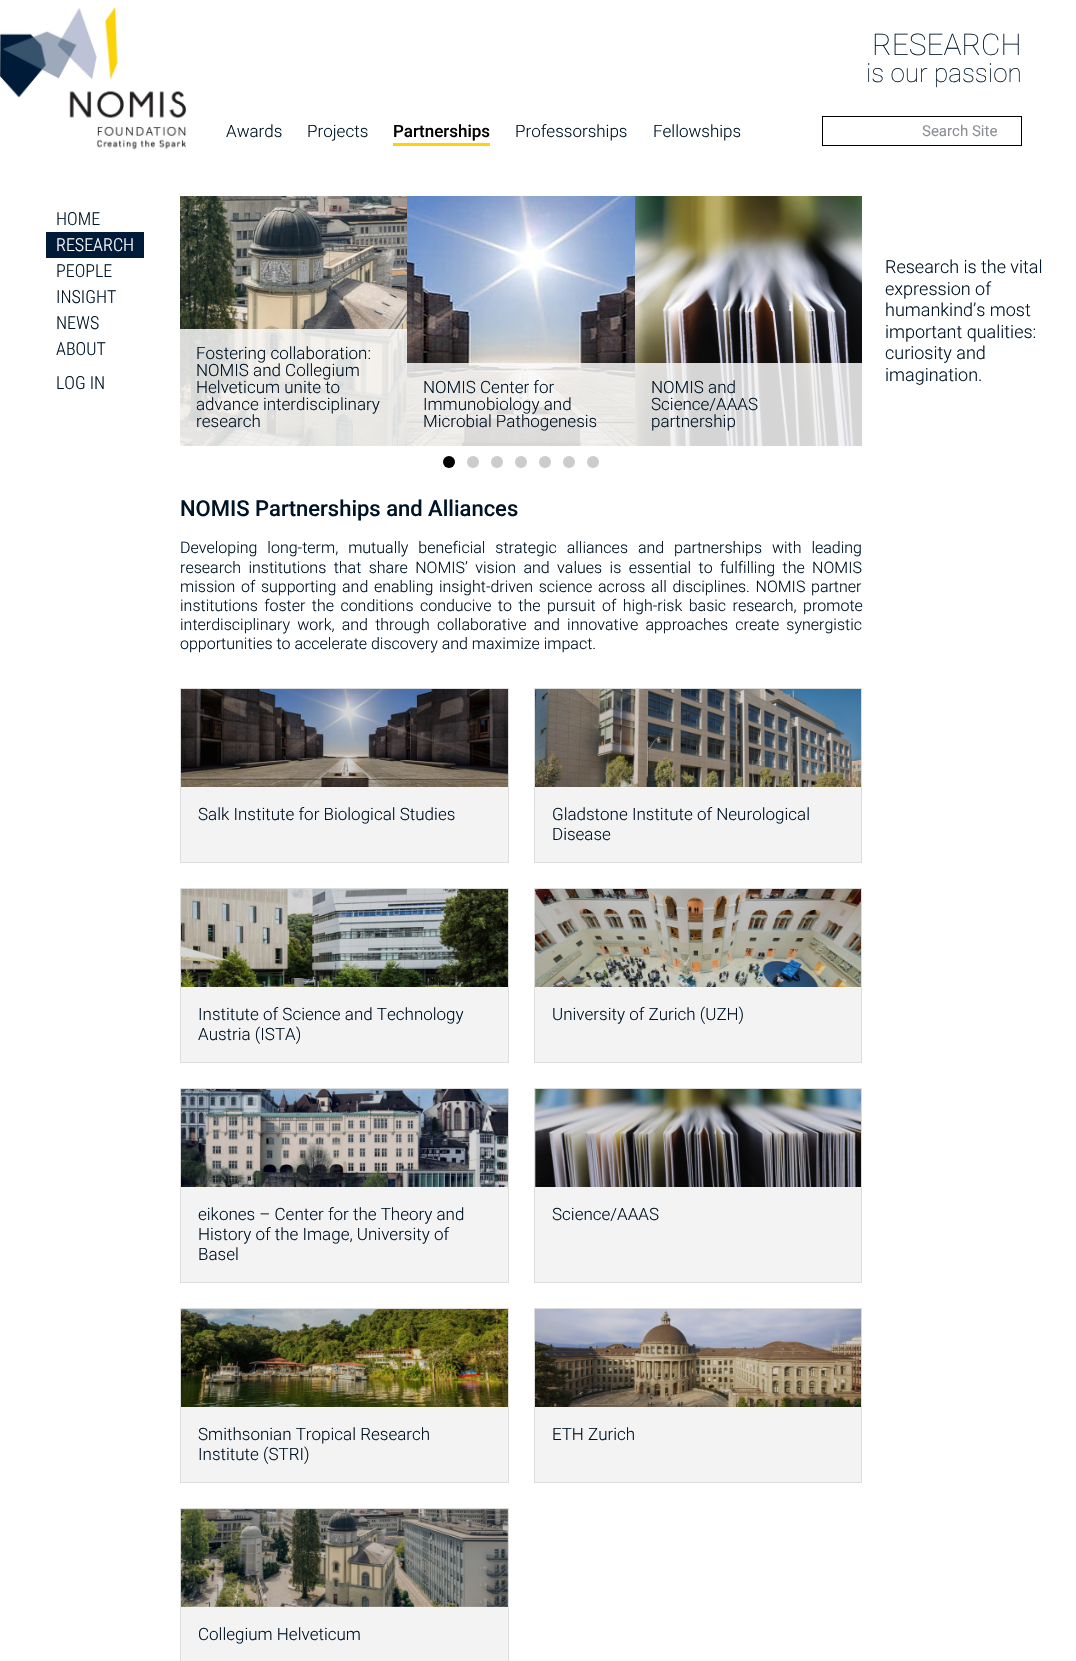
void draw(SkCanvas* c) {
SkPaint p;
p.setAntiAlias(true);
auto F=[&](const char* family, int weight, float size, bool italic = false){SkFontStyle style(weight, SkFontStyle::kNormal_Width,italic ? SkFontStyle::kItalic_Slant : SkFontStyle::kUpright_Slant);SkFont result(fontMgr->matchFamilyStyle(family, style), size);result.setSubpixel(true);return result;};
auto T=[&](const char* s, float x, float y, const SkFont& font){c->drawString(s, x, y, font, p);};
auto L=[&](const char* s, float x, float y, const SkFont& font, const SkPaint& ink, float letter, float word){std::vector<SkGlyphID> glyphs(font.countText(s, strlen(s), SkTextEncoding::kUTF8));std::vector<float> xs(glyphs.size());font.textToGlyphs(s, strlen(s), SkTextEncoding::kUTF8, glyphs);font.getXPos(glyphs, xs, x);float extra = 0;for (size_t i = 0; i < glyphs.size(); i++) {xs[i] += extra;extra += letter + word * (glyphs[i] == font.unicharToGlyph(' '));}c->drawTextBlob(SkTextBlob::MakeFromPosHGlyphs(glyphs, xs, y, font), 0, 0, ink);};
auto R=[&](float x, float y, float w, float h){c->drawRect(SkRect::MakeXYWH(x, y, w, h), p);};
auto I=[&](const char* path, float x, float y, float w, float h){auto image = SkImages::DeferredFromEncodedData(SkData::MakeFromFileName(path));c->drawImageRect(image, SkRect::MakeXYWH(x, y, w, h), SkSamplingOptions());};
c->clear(0xffffffff);
I("1.png",0,6,186,144);
auto f1 = F("Roboto",100,30);
p.setColor(0xff001426);
T("RESEARCH",872,55,f1);
auto f2 = F("Roboto",100,26);
T("is our passion",866,82,f2);
auto f3 = F("Roboto",300,17);
T("Awards",226,137,f3);
T("Projects",307,137,f3);
auto f4 = F("Roboto",500,17);
p.setColor(0xff000000);
T("Partnerships",393,137,f4);
p.setColor(0xffffd200);
R(393,143,97,3);
p.setColor(0xff001426);
T("Professorships",515,137,f3);
T("Fellowships",653,137,f3);
p.setStroke(true);
p.setStrokeWidth(1);
p.setColor(0xff000000);
c->drawRect(SkRect::MakeXYWH(822.5,116.5,199,29),p);
auto f5 = F("Roboto",400,15);
p.setStroke(false);
p.setColor(0xff8c8f93);
T("Search Site",922,136,f5);
auto f6 = F("Roboto Condensed",300,18);
p.setColor(0xff001426);
T("HOME",56,225,f6);
p.setColor(0xff001b38);
R(46,232,98,26);
p.setColor(0xffffffff);
T("RESEARCH",56,251,f6);
p.setColor(0xff001426);
T("PEOPLE",56,277,f6);
T("INSIGHT",56,303,f6);
T("NEWS",56,329,f6);
T("ABOUT",56,355,f6);
T("LOG IN",56,389,f6);
auto f7 = F("Roboto",300,18);
T("Research is the vital",885,273,f7);
T("expression of",885,295,f7);
T("humankind’s most",885,316,f7);
T("important qualities:",885,338,f7);
T("curiosity and",885,359,f7);
T("imagination.",885,381,f7);
I("2.png",180,196,227,250);
p.setColor(0xd9f8f8f8);
R(180,329,227,117);
p.setColor(0xff001426);
T("Fostering collaboration:",196,359,f3);
T("NOMIS and Collegium",196,376,f3);
T("Helveticum unite to",196,393,f3);
T("advance interdisciplinary",196,410,f3);
T("research",196,427,f3);
I("3.png",407,196,228,250);
p.setColor(0xd9f8f8f8);
R(407,363,228,83);
p.setColor(0xff001426);
T("NOMIS Center for",423,393,f3);
T("Immunobiology and",423,410,f3);
T("Microbial Pathogenesis",423,427,f3);
I("4.png",635,196,227,250);
p.setColor(0xd9f8f8f8);
R(635,363,227,83);
p.setColor(0xff001426);
T("NOMIS and",651,393,f3);
T("Science/AAAS",651,410,f3);
T("partnership",651,427,f3);
p.setColor(0xff000000);
c->drawCircle(449,462,6,p);
p.setColor(0xffcccccc);
c->drawCircle(473,462,6,p);
c->drawCircle(497,462,6,p);
c->drawCircle(521,462,6,p);
c->drawCircle(545,462,6,p);
c->drawCircle(569,462,6,p);
c->drawCircle(593,462,6,p);
auto f8 = F("Roboto",500,22);
p.setColor(0xff001426);
T("NOMIS Partnerships and Alliances",180,516,f8);
auto f9 = F("Roboto",300,16);
L("Developing long-term, mutually beneficial strategic alliances and partnerships with leading",180,553,f9,p,0,6);
L("research institutions that share NOMIS’ vision and values is essential to fulfilling the NOMIS",180,573,f9,p,0,3.5);
L("mission of supporting and enabling insight-driven science across all disciplines. NOMIS partner",180,592,f9,p,0,1.75);
L("institutions foster the conditions conducive to the pursuit of high-risk basic research, promote",180,611,f9,p,0,2.5);
L("interdisciplinary work, and through collaborative and innovative approaches create synergistic",180,630,f9,p,0,3.25);
T("opportunities to accelerate discovery and maximize impact.",180,649,f9);
p.setColor(0xfff3f3f3);
R(181,787,327,75);
p.setStroke(true);
p.setColor(0xffdddddd);
c->drawRect(SkRect::MakeXYWH(180.5,688.5,328,174),p);
I("5.png",181,689,327,98);
p.setStroke(false);
p.setColor(0xff001426);
T("Salk Institute for Biological Studies",198,820,f3);
p.setColor(0xfff3f3f3);
R(535,787,326,75);
p.setStroke(true);
p.setColor(0xffdddddd);
c->drawRect(SkRect::MakeXYWH(534.5,688.5,327,174),p);
I("6.png",535,689,326,98);
p.setStroke(false);
p.setColor(0xff001426);
T("Gladstone Institute of Neurological",552,820,f3);
T("Disease",552,840,f3);
p.setColor(0xfff3f3f3);
R(181,987,327,75);
p.setStroke(true);
p.setColor(0xffdddddd);
c->drawRect(SkRect::MakeXYWH(180.5,888.5,328,174),p);
I("7.png",181,889,327,98);
p.setStroke(false);
p.setColor(0xff001426);
T("Institute of Science and Technology",198,1020,f3);
T("Austria (ISTA)",198,1040,f3);
p.setColor(0xfff3f3f3);
R(535,987,326,75);
p.setStroke(true);
p.setColor(0xffdddddd);
c->drawRect(SkRect::MakeXYWH(534.5,888.5,327,174),p);
I("8.png",535,889,326,98);
p.setStroke(false);
p.setColor(0xff001426);
T("University of Zurich (UZH)",552,1020,f3);
p.setColor(0xfff3f3f3);
R(181,1187,327,95);
p.setStroke(true);
p.setColor(0xffdddddd);
c->drawRect(SkRect::MakeXYWH(180.5,1088.5,328,194),p);
I("9.png",181,1089,327,98);
p.setStroke(false);
p.setColor(0xff001426);
T("eikones – Center for the Theory and",198,1220,f3);
T("History of the Image, University of",198,1240,f3);
T("Basel",198,1260,f3);
p.setColor(0xfff3f3f3);
R(535,1187,326,95);
p.setColor(0xffcccccc);
R(535,1089,1,98);
p.setStroke(true);
p.setColor(0xffdddddd);
c->drawRect(SkRect::MakeXYWH(534.5,1088.5,327,194),p);
I("10.png",535,1089,326,98);
p.setStroke(false);
p.setColor(0xff001426);
T("Science/AAAS",552,1220,f3);
p.setColor(0xfff3f3f3);
R(181,1407,327,75);
p.setStroke(true);
p.setColor(0xffdddddd);
c->drawRect(SkRect::MakeXYWH(180.5,1308.5,328,174),p);
I("11.png",181,1309,327,98);
p.setStroke(false);
p.setColor(0xff001426);
T("Smithsonian Tropical Research",198,1440,f3);
T("Institute (STRI)",198,1460,f3);
p.setColor(0xfff3f3f3);
R(535,1407,326,75);
p.setStroke(true);
p.setColor(0xffdddddd);
c->drawRect(SkRect::MakeXYWH(534.5,1308.5,327,174),p);
I("12.png",535,1309,326,98);
p.setStroke(false);
p.setColor(0xff001426);
T("ETH Zurich",552,1440,f3);
p.setColor(0xfff3f3f3);
R(181,1607,327,54);
p.setColor(0xffcccccc);
R(181,1509,327,98);
p.setStroke(true);
p.setColor(0xffdddddd);
c->drawRect(SkRect::MakeXYWH(180.5,1508.5,328,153),p);
I("13.png",181,1509,327,98);
p.setStroke(false);
p.setColor(0xff001426);
T("Collegium Helveticum",198,1640,f3);
}
